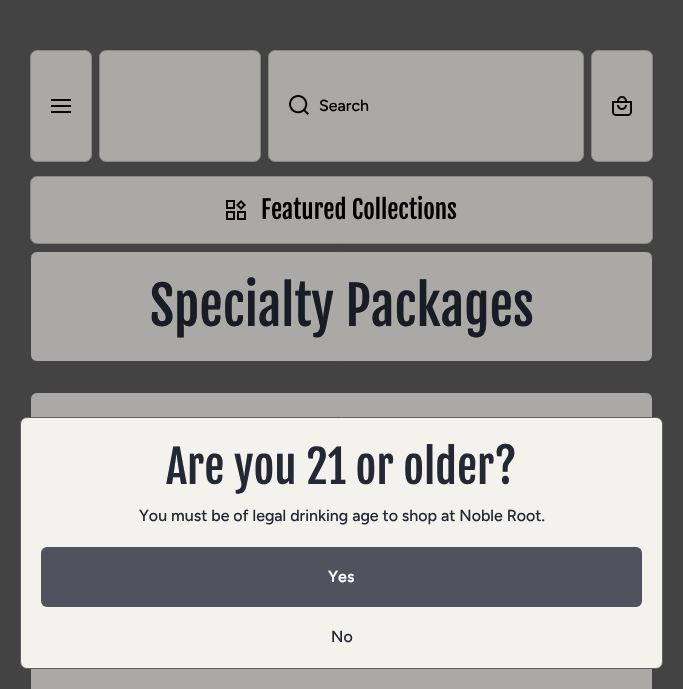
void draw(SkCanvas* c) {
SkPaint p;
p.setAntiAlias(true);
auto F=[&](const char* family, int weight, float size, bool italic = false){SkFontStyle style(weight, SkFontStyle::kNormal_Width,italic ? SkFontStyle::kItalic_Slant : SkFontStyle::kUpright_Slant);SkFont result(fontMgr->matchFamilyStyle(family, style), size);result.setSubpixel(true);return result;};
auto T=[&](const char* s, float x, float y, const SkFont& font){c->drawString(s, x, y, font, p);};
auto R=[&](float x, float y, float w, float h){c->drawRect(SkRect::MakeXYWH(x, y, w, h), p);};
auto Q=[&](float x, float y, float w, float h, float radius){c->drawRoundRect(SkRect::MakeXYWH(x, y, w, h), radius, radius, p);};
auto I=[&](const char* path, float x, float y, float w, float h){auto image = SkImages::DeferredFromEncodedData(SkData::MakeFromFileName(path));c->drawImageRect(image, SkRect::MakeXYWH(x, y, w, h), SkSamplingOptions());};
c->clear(0xff424342);
p.setColor(0xffaaa9a5);
c->drawRoundRect(SkRect::MakeXYWH(30.5,50.5,61,111),6.5,6.5,p);
p.setStroke(true);
p.setStrokeWidth(1);
p.setColor(0xff868686);
c->drawRoundRect(SkRect::MakeXYWH(30.5,50.5,61,111),6.5,6.5,p);
p.setStroke(false);
p.setColor(0xff0a0701);
R(51,99,20,2);
R(51,105,20,2);
R(51,111,20,2);
p.setColor(0xffaaa9a5);
c->drawRoundRect(SkRect::MakeXYWH(99.5,50.5,161,111),6.5,6.5,p);
p.setStroke(true);
p.setColor(0xff868686);
c->drawRoundRect(SkRect::MakeXYWH(99.5,50.5,161,111),6.5,6.5,p);
p.setStroke(false);
p.setColor(0xffaaa9a5);
c->drawRoundRect(SkRect::MakeXYWH(268.5,50.5,315,111),6.5,6.5,p);
p.setStroke(true);
p.setColor(0xff868686);
c->drawRoundRect(SkRect::MakeXYWH(268.5,50.5,315,111),6.5,6.5,p);
I("1.png",289,95,20,20);
auto f1 = F("Figtree",500,16);
p.setStroke(false);
p.setColor(0xff000000);
T("Search",319,111,f1);
p.setColor(0xffaaa9a5);
c->drawRoundRect(SkRect::MakeXYWH(591.5,50.5,61,111),6.5,6.5,p);
p.setStroke(true);
p.setColor(0xff868686);
c->drawRoundRect(SkRect::MakeXYWH(591.5,50.5,61,111),6.5,6.5,p);
I("2.png",612,96,20,20);
p.setStroke(false);
p.setColor(0xffaaa9a5);
c->drawRoundRect(SkRect::MakeXYWH(30.5,176.5,622,67),6.5,6.5,p);
p.setStroke(true);
p.setColor(0xff868686);
c->drawRoundRect(SkRect::MakeXYWH(30.5,176.5,622,67),6.5,6.5,p);
I("3.png",226,200,20,20);
auto f2 = F("Fjalla One",400,25);
p.setStroke(false);
p.setColor(0xff000000);
T("Featured Collections",261,219,f2);
p.setColor(0xffaaa9a5);
c->drawRoundRect(SkRect::MakeXYWH(30.5,251.5,622,110),6.5,6.5,p);
p.setStroke(true);
p.setColor(0xff424342);
c->drawRoundRect(SkRect::MakeXYWH(30.5,251.5,622,110),6.5,6.5,p);
auto f3 = F("Fjalla One",400,52.5);
p.setStroke(false);
p.setColor(0xff191c25);
T("Specialty Packages",150,326,f3);
p.setColor(0xffaaa9a5);
c->drawRoundRect(SkRect::MakeXYWH(30.5,392.5,622,62),6.5,6.5,p);
p.setStroke(true);
p.setColor(0xff424342);
c->drawRoundRect(SkRect::MakeXYWH(30.5,392.5,622,62),6.5,6.5,p);
p.setStroke(false);
p.setColor(0xffaaa9a5);
R(31,669,621,20);
p.setColor(0xfff3f2ec);
c->drawRoundRect(SkRect::MakeXYWH(20.5,417.5,642,251),6.5,6.5,p);
p.setStroke(true);
p.setColor(0xff5e5f5e);
c->drawRoundRect(SkRect::MakeXYWH(20.5,417.5,642,251),6.5,6.5,p);
auto f4 = F("Fjalla One",400,45);
p.setStroke(false);
p.setColor(0xff242835);
T("Are you 21 or older?",166,484,f4);
T("You must be of legal drinking age to shop at Noble Root.",139,521,f1);
p.setColor(0xff50535d);
Q(41,547,601,60,6);
auto f5 = F("Figtree",600,16);
p.setColor(0xffffffff);
T("Yes",328,582,f5);
p.setColor(0xff242835);
T("No",331,642,f1);
}
